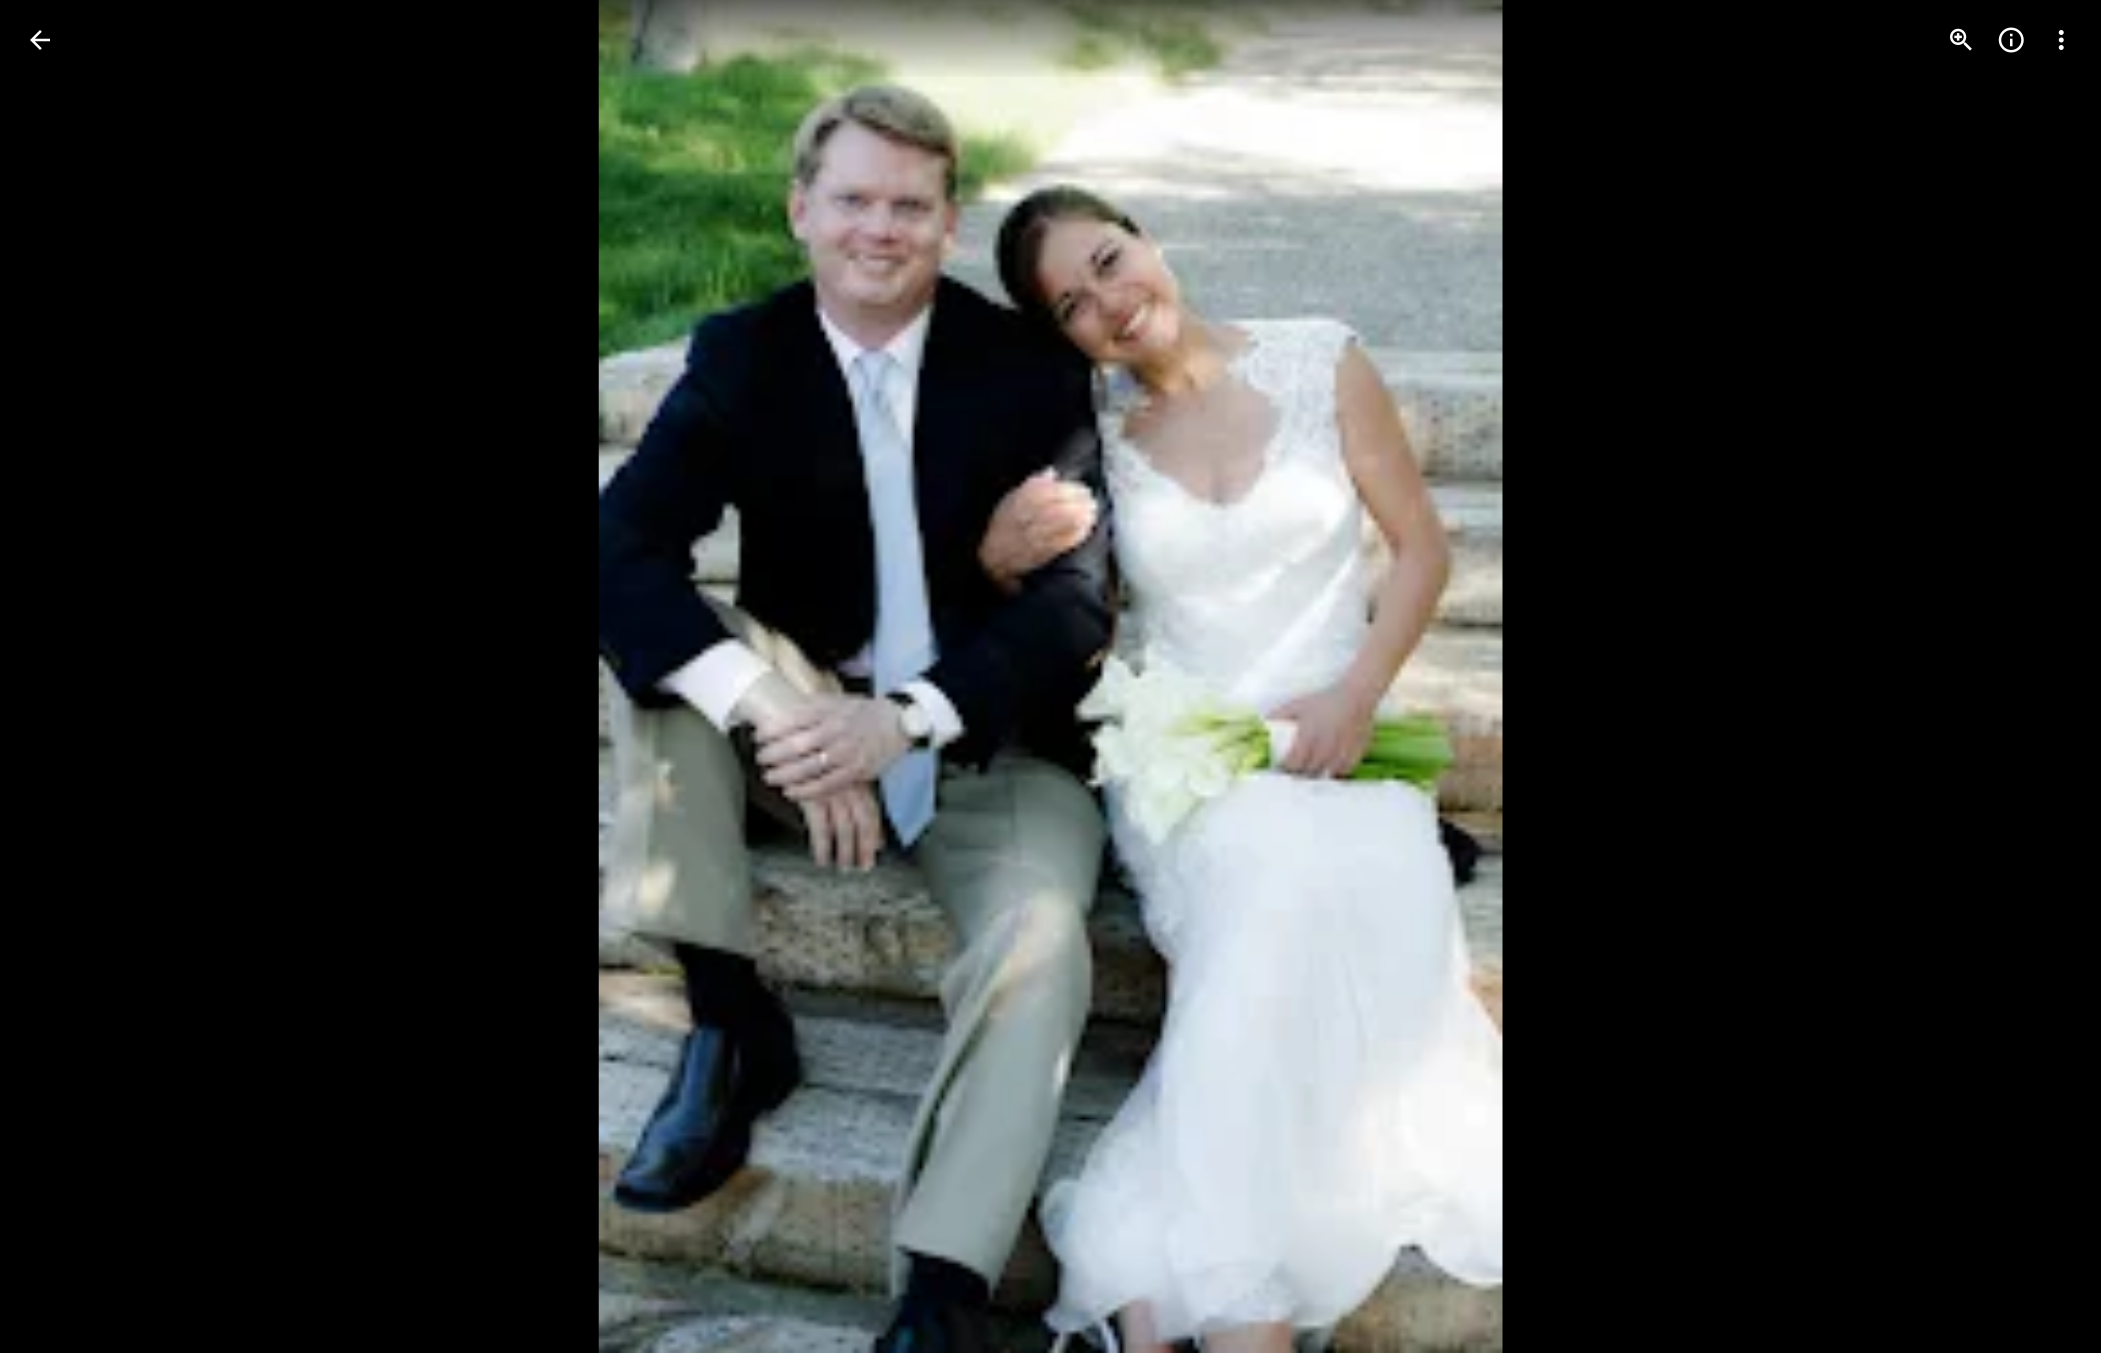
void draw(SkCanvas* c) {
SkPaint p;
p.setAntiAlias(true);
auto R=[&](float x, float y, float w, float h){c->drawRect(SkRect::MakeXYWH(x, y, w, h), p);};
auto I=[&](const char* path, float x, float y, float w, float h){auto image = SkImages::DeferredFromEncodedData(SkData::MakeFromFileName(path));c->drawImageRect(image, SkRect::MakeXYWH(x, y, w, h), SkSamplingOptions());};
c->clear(0xff000000);
I("5.png",598,0,905,1353);
{
const SkColor colors[] = {0x99000000,0x00000000};
const float stops[] = {0,1};
const SkPoint ends[] = {{1051,0}, {1051,80}};
p.setShader(SkGradientShader::MakeLinear(ends, colors, stops, 2, SkTileMode::kClamp));
p.setAlpha(255);
}
R(598,0,905,77);
I("1.png",30,30,20,20);
I("2.png",1950,28,22,23);
I("3.png",1998,27,26,26);
I("4.png",2058,30,6,20);
}
